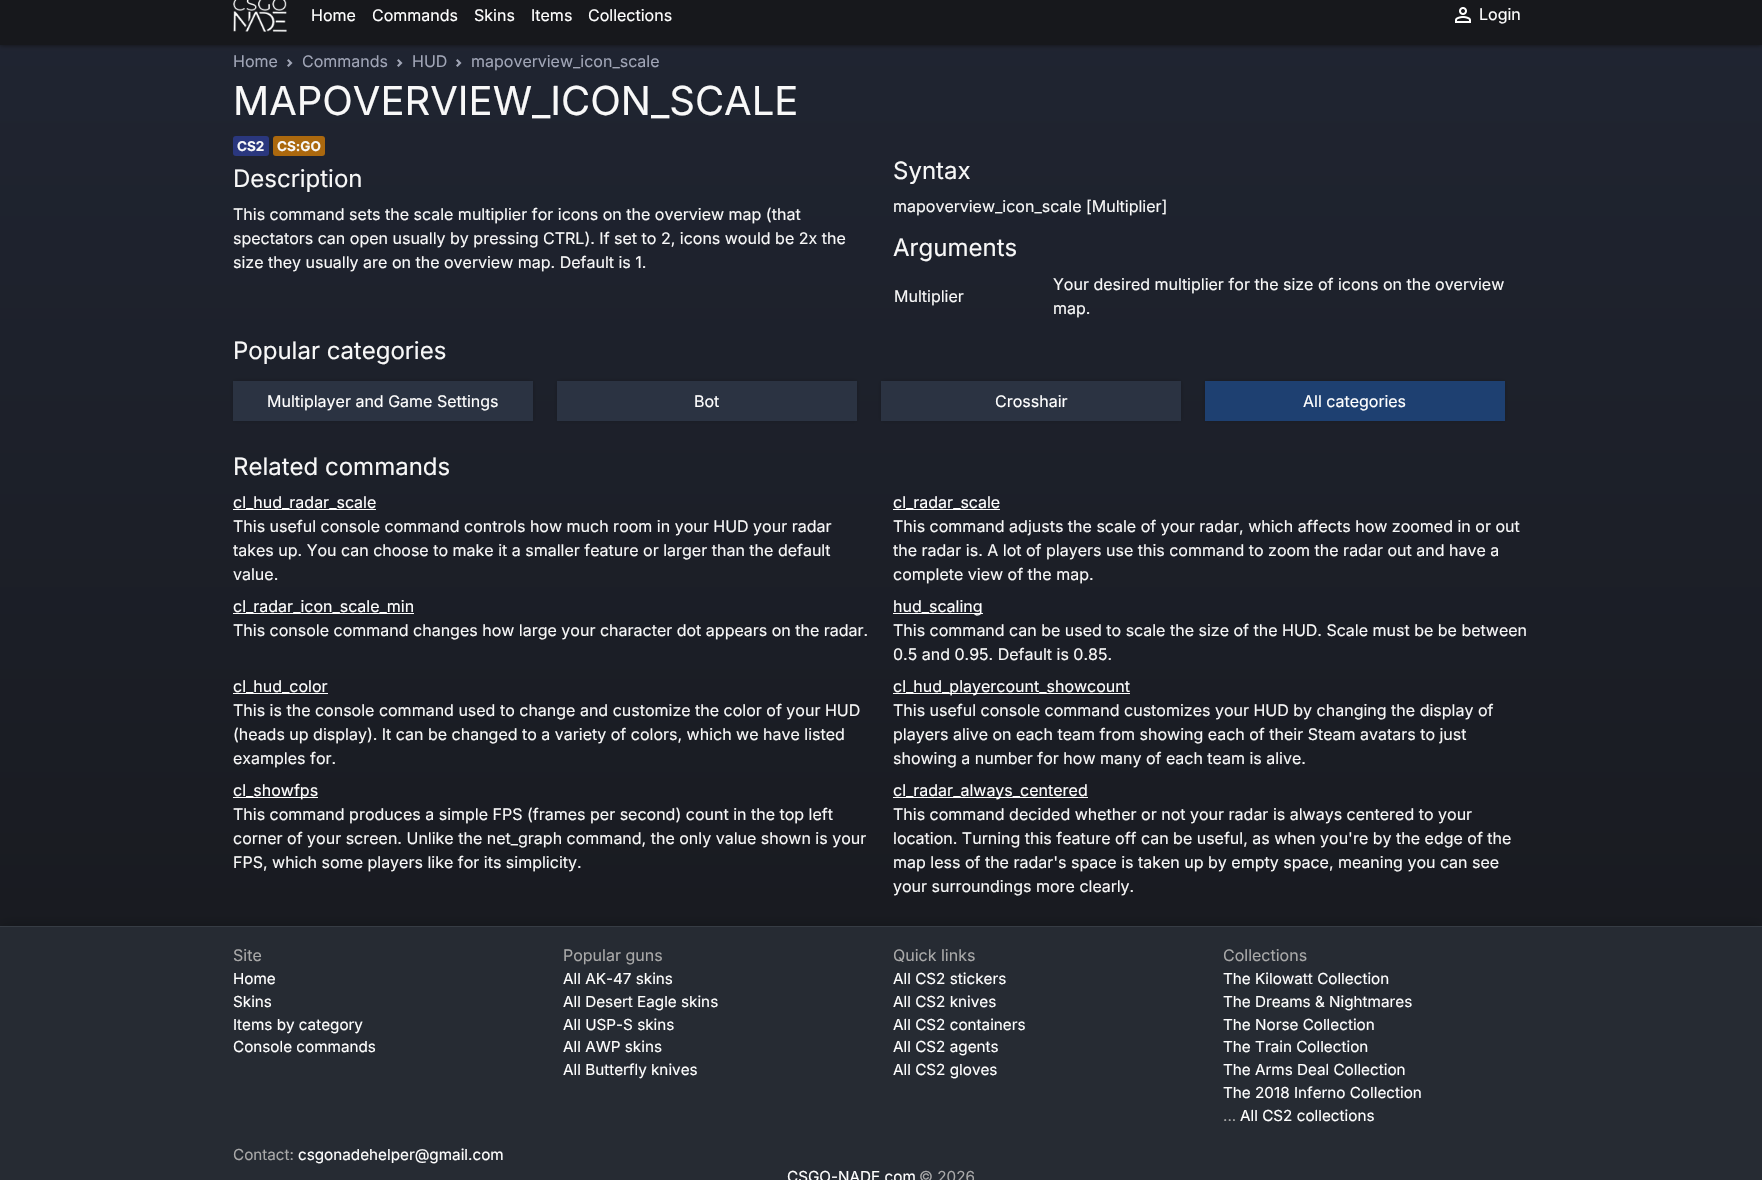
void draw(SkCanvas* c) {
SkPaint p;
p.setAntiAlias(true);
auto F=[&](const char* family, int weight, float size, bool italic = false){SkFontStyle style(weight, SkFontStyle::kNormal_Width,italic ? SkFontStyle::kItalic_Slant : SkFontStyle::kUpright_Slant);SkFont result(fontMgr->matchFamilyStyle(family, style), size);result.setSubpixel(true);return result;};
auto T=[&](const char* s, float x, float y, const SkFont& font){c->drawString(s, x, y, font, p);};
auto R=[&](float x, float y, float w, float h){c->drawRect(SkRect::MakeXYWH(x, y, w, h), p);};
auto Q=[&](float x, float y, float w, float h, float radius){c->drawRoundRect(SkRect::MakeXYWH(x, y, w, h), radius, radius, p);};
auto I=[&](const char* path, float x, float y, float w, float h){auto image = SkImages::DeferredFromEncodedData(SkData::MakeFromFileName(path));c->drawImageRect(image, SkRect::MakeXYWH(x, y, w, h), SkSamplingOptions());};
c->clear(0xffffffff);
{
const SkColor colors[] = {0xff202532,0xff17181c};
const float stops[] = {0,1};
const SkPoint ends[] = {{881,-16}, {881,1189}};
p.setShader(SkGradientShader::MakeLinear(ends, colors, stops, 2, SkTileMode::kClamp));
p.setAlpha(255);
}
R(0,45,1762,881);
p.setShader(nullptr);
p.setColor(0xff101114);
p.setMaskFilter(SkMaskFilter::MakeBlur(kNormal_SkBlurStyle, 2.5));
c->drawRect(SkRect::MakeXYWH(0,-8,1762,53),p);
p.setMaskFilter(nullptr);
p.setColor(0xff17181c);
R(0,0,1762,45);
I("1.png",233,0,54,32);
auto f1 = F("Inter",400,16);
p.setColor(0xffffffff);
T("Home",311,21,f1);
T("Commands",372,21,f1);
T("Skins",474,21,f1);
T("Items",531,21,f1);
T("Collections",588,21,f1);
I("2.png",1455,7,16,16);
T("Login",1479,20,f1);
p.setColor(0xffa0a5b6);
T("Home",233,67,f1);
I("3.png",287,59,6,8);
T("Commands",302,67,f1);
I("3.png",397,59,6,8);
T("HUD",412,67,f1);
I("3.png",456,59,6,8);
T("mapoverview_icon_scale",471,67,f1);
auto f2 = F("Inter",400,40);
p.setColor(0xfff8f8f8);
T("MAPOVERVIEW_ICON_SCALE",233,115,f2);
p.setColor(0xff2a377e);
Q(233,136,36,20,3);
auto f3 = F("Inter",700,13.5);
p.setColor(0xfff8f8f8);
T("CS2",237,151,f3);
p.setColor(0xffab680e);
Q(273,136,52,20,3);
p.setColor(0xfff8f8f8);
T("CS:GO",277,151,f3);
auto f4 = F("Inter",400,24);
T("Description",233,187,f4);
T("This command sets the scale multiplier for icons on the overview map (that",233,220,f1);
T("spectators can open usually by pressing CTRL). If set to 2, icons would be 2x the",233,244,f1);
T("size they usually are on the overview map. Default is 1.",233,268,f1);
T("Syntax",893,179,f4);
T("mapoverview_icon_scale [Multiplier]",893,212,f1);
T("Arguments",893,256,f4);
T("Multiplier",894,302,f1);
T("Your desired multiplier for the size of icons on the overview",1053,290,f1);
T("map.",1053,314,f1);
T("Popular categories",233,359,f4);
p.setColor(0xff171a21);
p.setMaskFilter(SkMaskFilter::MakeBlur(kNormal_SkBlurStyle, 2.5));
c->drawRect(SkRect::MakeXYWH(233,381,300,40),p);
p.setMaskFilter(nullptr);
p.setColor(0xff2b3342);
R(233,381,300,40);
p.setColor(0xffffffff);
T("Multiplayer and Game Settings",267,407,f1);
p.setColor(0xff171a21);
p.setMaskFilter(SkMaskFilter::MakeBlur(kNormal_SkBlurStyle, 2.5));
c->drawRect(SkRect::MakeXYWH(557,381,300,40),p);
p.setMaskFilter(nullptr);
p.setColor(0xff2b3342);
R(557,381,300,40);
p.setColor(0xffffffff);
T("Bot",694,407,f1);
p.setColor(0xff171a21);
p.setMaskFilter(SkMaskFilter::MakeBlur(kNormal_SkBlurStyle, 2.5));
c->drawRect(SkRect::MakeXYWH(881,381,300,40),p);
p.setMaskFilter(nullptr);
p.setColor(0xff2b3342);
R(881,381,300,40);
p.setColor(0xffffffff);
T("Crosshair",995,407,f1);
p.setColor(0xff171a21);
p.setMaskFilter(SkMaskFilter::MakeBlur(kNormal_SkBlurStyle, 2.5));
c->drawRect(SkRect::MakeXYWH(1205,381,300,40),p);
p.setMaskFilter(nullptr);
p.setColor(0xff1e4071);
R(1205,381,300,40);
p.setColor(0xffffffff);
T("All categories",1303,407,f1);
p.setColor(0xfff8f8f8);
T("Related commands",233,475,f4);
p.setColor(0xffffffff);
R(233,509,143,1);
T("cl_hud_radar_scale",233,508,f1);
p.setColor(0xfff8f8f8);
T("This useful console command controls how much room in your HUD your radar",233,532,f1);
T("takes up. You can choose to make it a smaller feature or larger than the default",233,556,f1);
T("value.",233,580,f1);
p.setColor(0xffffffff);
R(893,509,107,1);
T("cl_radar_scale",893,508,f1);
p.setColor(0xfff8f8f8);
T("This command adjusts the scale of your radar, which affects how zoomed in or out",893,532,f1);
T("the radar is. A lot of players use this command to zoom the radar out and have a",893,556,f1);
T("complete view of the map.",893,580,f1);
p.setColor(0xffffffff);
R(233,613,181,1);
T("cl_radar_icon_scale_min",233,612,f1);
p.setColor(0xfff8f8f8);
T("This console command changes how large your character dot appears on the radar.",233,636,f1);
p.setColor(0xffffffff);
R(893,613,90,1);
T("hud_scaling",893,612,f1);
p.setColor(0xfff8f8f8);
T("This command can be used to scale the size of the HUD. Scale must be be between",893,636,f1);
T("0.5 and 0.95. Default is 0.85.",893,660,f1);
p.setColor(0xffffffff);
R(233,693,95,1);
T("cl_hud_color",233,692,f1);
p.setColor(0xfff8f8f8);
T("This is the console command used to change and customize the color of your HUD",233,716,f1);
T("(heads up display). It can be changed to a variety of colors, which we have listed",233,740,f1);
T("examples for.",233,764,f1);
p.setColor(0xffffffff);
R(893,693,237,1);
T("cl_hud_playercount_showcount",893,692,f1);
p.setColor(0xfff8f8f8);
T("This useful console command customizes your HUD by changing the display of",893,716,f1);
T("players alive on each team from showing each of their Steam avatars to just",893,740,f1);
T("showing a number for how many of each team is alive.",893,764,f1);
p.setColor(0xffffffff);
R(233,797,85,1);
T("cl_showfps",233,796,f1);
p.setColor(0xfff8f8f8);
T("This command produces a simple FPS (frames per second) count in the top left",233,820,f1);
T("corner of your screen. Unlike the net_graph command, the only value shown is your",233,844,f1);
T("FPS, which some players like for its simplicity.",233,868,f1);
p.setColor(0xffffffff);
R(893,797,195,1);
T("cl_radar_always_centered",893,796,f1);
p.setColor(0xfff8f8f8);
T("This command decided whether or not your radar is always centered to your",893,820,f1);
T("location. Turning this feature off can be useful, as when you're by the edge of the",893,844,f1);
T("map less of the radar's space is taken up by empty space, meaning you can see",893,868,f1);
T("your surroundings more clearly.",893,892,f1);
p.setColor(0xff111417);
p.setMaskFilter(SkMaskFilter::MakeBlur(kNormal_SkBlurStyle, 7.5));
c->drawRect(SkRect::MakeXYWH(0,926,1762,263),p);
p.setMaskFilter(nullptr);
p.setColor(0xff262b33);
R(0,927,1762,253);
p.setColor(0xff363c44);
R(0,926,1762,1);
p.setColor(0xffa9a9a9);
T("Site",233,961,f1);
auto f5 = F("Inter",400,15.25);
p.setColor(0xffffffff);
T("Home",233,984,f5);
T("Skins",233,1007,f5);
T("Items by category",233,1030,f5);
T("Console commands",233,1052,f5);
p.setColor(0xffa9a9a9);
T("Popular guns",563,961,f1);
p.setColor(0xffffffff);
T("All AK-47 skins",563,984,f5);
T("All Desert Eagle skins",563,1007,f5);
T("All USP-S skins",563,1030,f5);
T("All AWP skins",563,1052,f5);
T("All Butterfly knives",563,1075,f5);
p.setColor(0xffa9a9a9);
T("Quick links",893,961,f1);
p.setColor(0xffffffff);
T("All CS2 stickers",893,984,f5);
T("All CS2 knives",893,1007,f5);
T("All CS2 containers",893,1030,f5);
T("All CS2 agents",893,1052,f5);
T("All CS2 gloves",893,1075,f5);
p.setColor(0xffa9a9a9);
T("Collections",1223,961,f1);
p.setColor(0xffffffff);
T("The Kilowatt Collection",1223,984,f5);
T("The Dreams & Nightmares",1223,1007,f5);
T("The Norse Collection",1223,1030,f5);
T("The Train Collection",1223,1052,f5);
T("The Arms Deal Collection",1223,1075,f5);
T("The 2018 Inferno Collection",1223,1098,f5);
p.setColor(0xffa9a9a9);
T("...",1223,1121,f5);
p.setColor(0xffffffff);
T("All CS2 collections",1240,1121,f5);
p.setColor(0xffa9a9a9);
T("Contact:",233,1160,f5);
p.setColor(0xffffffff);
T("csgonadehelper@gmail.com",298,1160,f5);
T("CSGO-NADE.com",787,1182,f5);
p.setColor(0xffa9a9a9);
T("© 2026",919,1182,f5);
}
